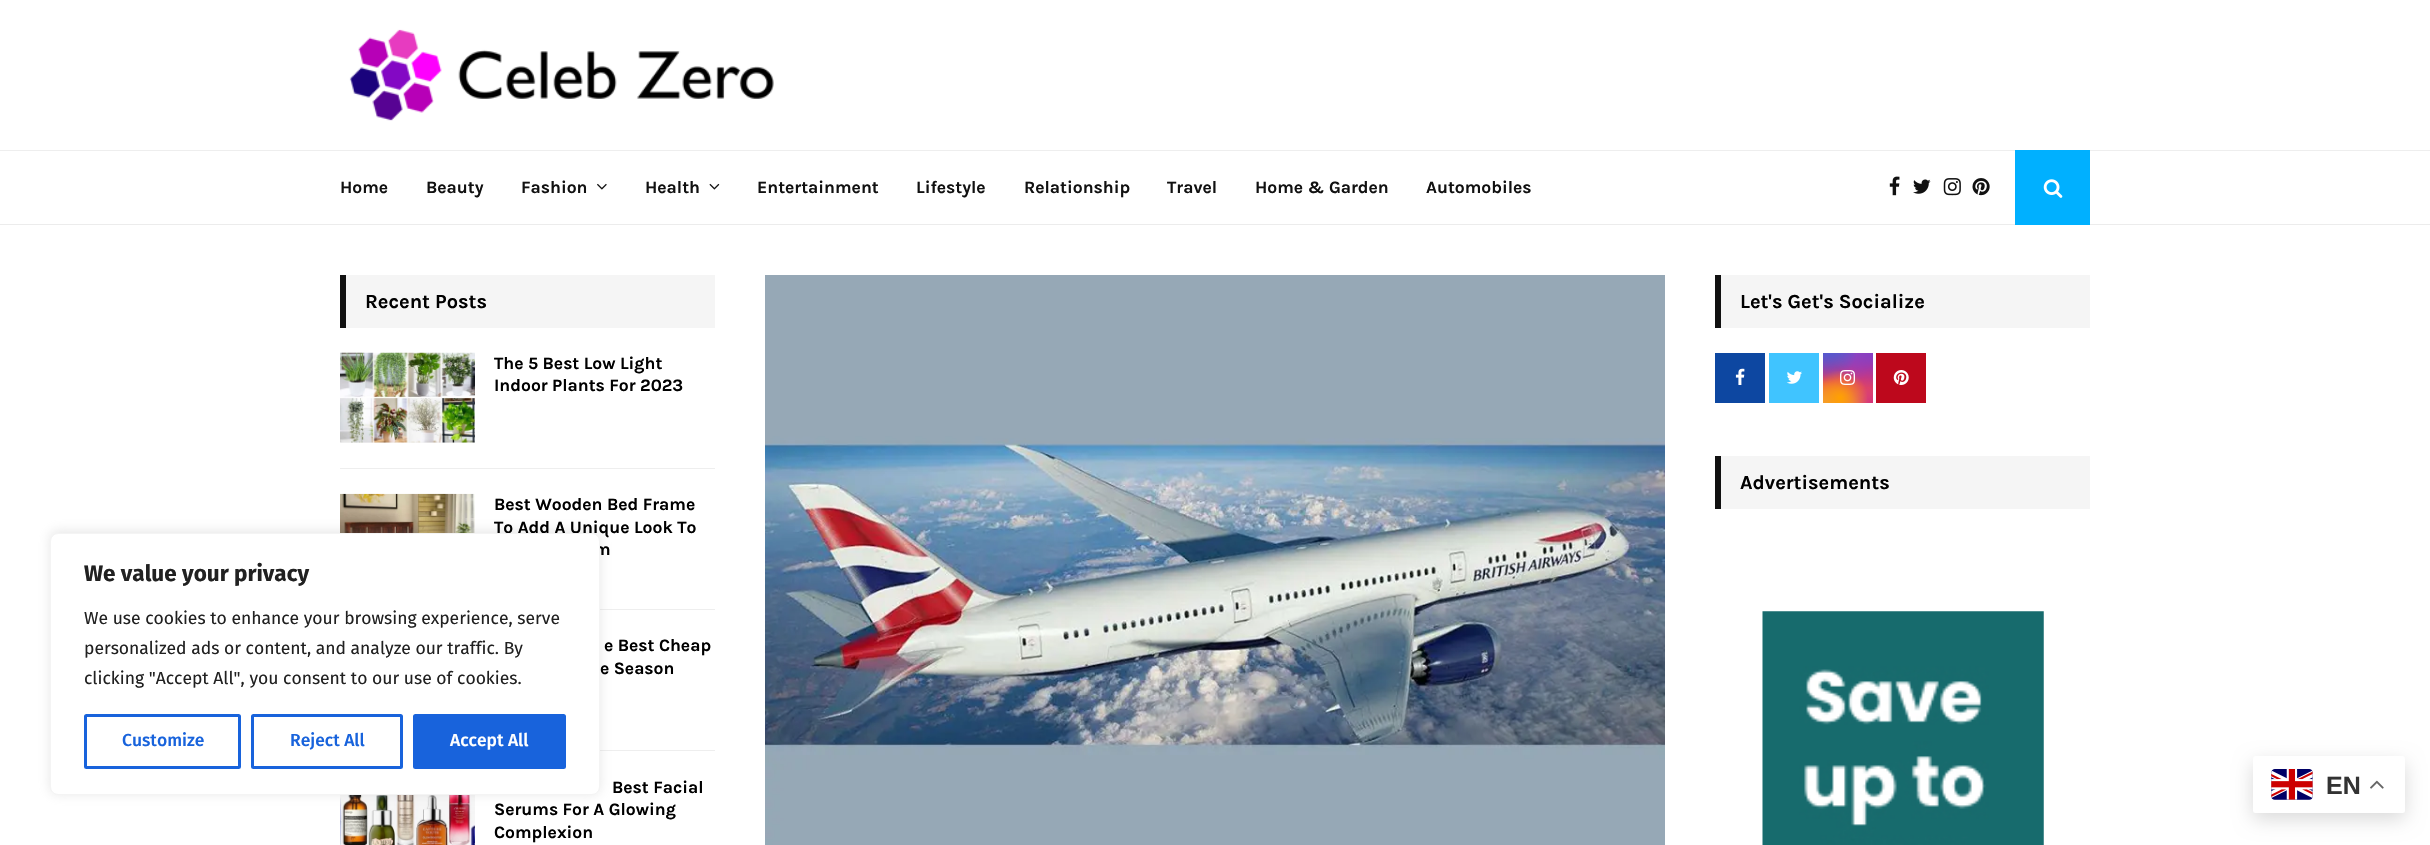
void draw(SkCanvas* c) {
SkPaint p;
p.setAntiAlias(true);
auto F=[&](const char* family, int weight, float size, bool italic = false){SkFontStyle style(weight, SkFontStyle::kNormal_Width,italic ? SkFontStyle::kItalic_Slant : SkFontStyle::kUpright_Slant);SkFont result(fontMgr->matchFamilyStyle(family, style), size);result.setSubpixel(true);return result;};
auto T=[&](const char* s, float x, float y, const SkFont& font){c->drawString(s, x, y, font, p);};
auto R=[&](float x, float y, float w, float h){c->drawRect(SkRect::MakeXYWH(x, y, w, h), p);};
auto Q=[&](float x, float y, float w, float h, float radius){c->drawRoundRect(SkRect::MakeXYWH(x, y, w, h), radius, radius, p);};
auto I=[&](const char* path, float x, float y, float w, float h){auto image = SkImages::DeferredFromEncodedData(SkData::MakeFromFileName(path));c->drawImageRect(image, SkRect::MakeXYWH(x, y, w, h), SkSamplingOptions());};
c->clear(0xffffffff);
p.setColor(0xffeeeeee);
R(600,609,115,1);
I("10.png",340,493,135,40);
R(600,750,115,1);
I("11.png",340,795,135,50);
p.setColor(0x4dacabab);
p.setMaskFilter(SkMaskFilter::MakeBlur(kNormal_SkBlurStyle, 6));
c->drawRoundRect(SkRect::MakeXYWH(50,531,550,263),8,8,p);
p.setMaskFilter(nullptr);
auto f1 = F("Karla",700,17.5);
p.setColor(0xff000000);
T("To Add A Unique Look To",494,533,f1);
T("m",594,555,f1);
p.setColor(0xffffffff);
c->drawRoundRect(SkRect::MakeXYWH(50.5,533.5,549,261),7.5,7.5,p);
p.setStroke(true);
p.setStrokeWidth(1);
p.setColor(0xfff4f4f4);
c->drawRoundRect(SkRect::MakeXYWH(50.5,533.5,549,261),7.5,7.5,p);
auto f2 = F("Fira Sans",700,22.5);
p.setStroke(false);
p.setColor(0xff212121);
T("We value your privacy",84,581,f2);
auto f3 = F("Fira Sans",400,17.5);
T("We use cookies to enhance your browsing experience, serve",84,624,f3);
T("personalized ads or content, and analyze our traffic. By",84,654,f3);
T("clicking \"Accept All\", you consent to our use of cookies.",84,684,f3);
p.setStroke(true);
p.setStrokeWidth(3);
p.setColor(0xff1863dc);
c->drawRoundRect(SkRect::MakeXYWH(85.5,715.5,154,52),1,1,p);
auto f4 = F("Fira Sans",500,17.5);
p.setStroke(false);
T("Customize",122,746,f4);
p.setStroke(true);
c->drawRoundRect(SkRect::MakeXYWH(252.5,715.5,149,52),1,1,p);
p.setStroke(false);
T("Reject All",290,746,f4);
c->drawRoundRect(SkRect::MakeXYWH(414.5,715.5,150,52),1,1,p);
p.setStroke(true);
c->drawRoundRect(SkRect::MakeXYWH(414.5,715.5,150,52),1,1,p);
p.setStroke(false);
p.setColor(0xffffffff);
T("Accept All",450,746,f4);
I("1.png",349,29,425,92);
p.setColor(0xffececec);
R(0,224,2430,1);
p.setColor(0xffeeeeee);
R(0,150,2430,1);
p.setColor(0xff111111);
T("Home",340,193,f1);
T("Beauty",426,193,f1);
T("Fashion",521,193,f1);
I("2.png",597,183,10,7);
T("Health",645,193,f1);
I("3.png",709,183,11,7);
T("Entertainment",757,193,f1);
T("Lifestyle",916,193,f1);
T("Relationship",1024,193,f1);
T("Travel",1167,193,f1);
T("Home & Garden",1255,193,f1);
T("Automobiles",1426,193,f1);
I("4.png",1889,176,11,20);
I("5.png",1913,179,18,15);
I("6.png",1943,178,18,18);
I("7.png",1972,178,18,18);
p.setColor(0xff00b0ff);
R(2015,150,75,75);
I("8.png",2043,179,20,19);
p.setColor(0xfff5f5f5);
R(346,275,369,53);
p.setColor(0xff111111);
R(340,275,6,53);
auto f5 = F("Karla",700,20);
p.setColor(0xff000000);
T("Recent Posts",365,308,f5);
p.setColor(0xffeeeeee);
R(340,468,375,1);
p.setColor(0xfff5f5f5);
R(340,442,135,1);
I("9.png",340,352,135,91);
p.setColor(0xff000000);
T("The 5 Best Low Light",494,369,f1);
T("Indoor Plants For 2023",494,391,f1);
T("Best Wooden Bed Frame",494,510,f1);
T("e Best Cheap",604,651,f1);
T("e Season",600,674,f1);
T("Best Facial",612,793,f1);
T("Serums For A Glowing",494,815,f1);
T("Complexion",494,838,f1);
I("12.png",765,275,900,570);
p.setColor(0xfff5f5f5);
R(1721,275,369,53);
p.setColor(0xff111111);
R(1715,275,6,53);
p.setColor(0xff000000);
T("Let's Get's Socialize",1740,308,f5);
p.setColor(0xff0d47a1);
R(1715,353,50,50);
I("13.png",1735,368,10,17);
p.setColor(0xff40c4ff);
R(1769,353,50,50);
I("14.png",1786,371,16,13);
{
const SkColor colors[] = {0xff6559ca,0xffbc318f,0xffe33f5f,0xfff77638,0xfffec66d};
const float stops[] = {0,.3,.5,.7,1};
const SkPoint ends[] = {{1848,353}, {1848,403}};
p.setShader(SkGradientShader::MakeLinear(ends, colors, stops, 5, SkTileMode::kClamp));
p.setAlpha(255);
}
R(1823,353,50,50);
{
const SkColor colors[] = {0xffd43178,0x00d43178};
const float stops[] = {0,1};
p.setShader(SkGradientShader::MakeRadial({1873,403}, 71, colors, stops, 2, SkTileMode::kClamp));
p.setAlpha(255);
}
R(1823,353,50,50);
{
const SkColor colors[] = {0xff8f44c7,0x008f44c7};
const float stops[] = {0,.5};
SkMatrix m = SkMatrix::Translate(1853,343).preScale(42,85);
p.setShader(SkGradientShader::MakeRadial({0, 0}, 1, colors, stops, 2, SkTileMode::kClamp, 0, &m));
p.setAlpha(255);
}
R(1835,353,37,32);
{
const SkColor colors[] = {0xff893dc2,0x00893dc2};
const float stops[] = {0,.5};
p.setShader(SkGradientShader::MakeRadial({1873,353}, 71, colors, stops, 2, SkTileMode::kClamp));
p.setAlpha(255);
}
R(1842,353,31,34);
{
const SkColor colors[] = {0xff5258cf,0x005258cf};
const float stops[] = {0,.5};
SkMatrix m = SkMatrix::Translate(1833,328).preScale(57,106);
p.setShader(SkGradientShader::MakeRadial({0, 0}, 1, colors, stops, 2, SkTileMode::kClamp, 0, &m));
p.setAlpha(255);
}
R(1823,353,33,27);
{
const SkColor colors[] = {0xff5258cf,0x005258cf};
const float stops[] = {0,.5};
SkMatrix m = SkMatrix::Translate(1823,340).preScale(71,88);
p.setShader(SkGradientShader::MakeRadial({0, 0}, 1, colors, stops, 2, SkTileMode::kClamp, 0, &m));
p.setAlpha(255);
}
R(1823,353,32,30);
{
const SkColor colors[] = {0xffefa11c,0x00efa11c};
const float stops[] = {0,.5};
p.setShader(SkGradientShader::MakeRadial({1823,423}, 86, colors, stops, 2, SkTileMode::kClamp));
p.setAlpha(255);
}
R(1823,381,36,22);
{
const SkColor colors[] = {0xffffa100,0x00ffa100};
const float stops[] = {0,.5};
p.setShader(SkGradientShader::MakeRadial({1840,398}, 56, colors, stops, 2, SkTileMode::kClamp));
p.setAlpha(255);
}
R(1823,371,44,32);
I("15.png",1840,370,15,15);
p.setShader(nullptr);
p.setColor(0xffbd081c);
R(1876,353,50,50);
I("16.png",1893,370,16,15);
p.setColor(0xfff5f5f5);
R(1721,456,369,53);
p.setColor(0xff111111);
R(1715,456,6,53);
p.setColor(0xff000000);
T("Advertisements",1740,489,f5);
I("17.png",1762,611,282,234);
p.setColor(0x26000000);
p.setMaskFilter(SkMaskFilter::MakeBlur(kNormal_SkBlurStyle, 9.5));
c->drawRoundRect(SkRect::MakeXYWH(2253,763,152,56),2.5,2.5,p);
p.setMaskFilter(nullptr);
p.setColor(0xffffffff);
Q(2253,756,152,57,2.5);
I("18.png",2271,769,42,31);
auto f6 = F("Liberation Sans",700,25);
p.setColor(0xff333333);
T("EN",2326,794,f6);
I("19.png",2370,780,14,9);
}
